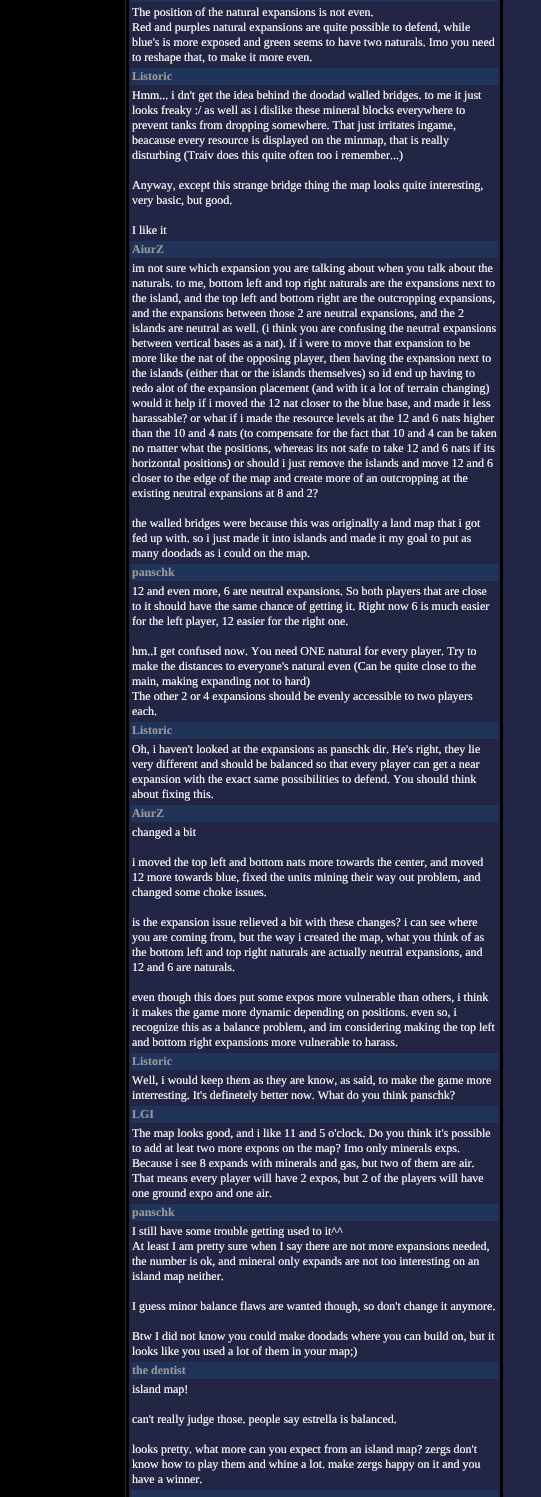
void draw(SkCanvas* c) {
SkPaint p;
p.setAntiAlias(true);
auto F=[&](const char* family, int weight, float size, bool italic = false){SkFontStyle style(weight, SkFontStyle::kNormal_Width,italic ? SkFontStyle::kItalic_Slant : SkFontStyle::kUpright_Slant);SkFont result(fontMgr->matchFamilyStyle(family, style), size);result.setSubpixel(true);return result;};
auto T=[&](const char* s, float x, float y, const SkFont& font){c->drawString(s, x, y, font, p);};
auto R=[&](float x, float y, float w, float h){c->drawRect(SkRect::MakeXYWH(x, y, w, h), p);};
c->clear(0xff000000);
p.setColor(0xff222644);
R(125,0,416,1497);
p.setStroke(true);
p.setStrokeWidth(3);
p.setColor(0xff000000);
c->drawRect(SkRect::MakeXYWH(127.5,-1.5,374,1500),p);
p.setStroke(false);
p.setColor(0xff1f3458);
R(131,0,367,2);
auto f1 = F("Liberation Serif",400,12);
p.setColor(0xffffffff);
T("The position of the natural expansions is not even.",132,16,f1);
T("Red and purples natural expansions are quite possible to defend, while",132,31,f1);
T("blue's is more exposed and green seems to have two naturals. Imo you need",132,46,f1);
T("to reshape that, to make it more even.",132,61,f1);
p.setColor(0xff1f3458);
R(131,68,367,17);
auto f2 = F("Liberation Serif",700,12);
p.setColor(0xff999999);
T("Listoric",132,80,f2);
p.setColor(0xffffffff);
T("Hmm... i dn't get the idea behind the doodad walled bridges. to me it just",132,99,f1);
T("looks freaky :/ as well as i dislike these mineral blocks everywhere to",132,114,f1);
T("prevent tanks from dropping somewhere. That just irritates ingame,",132,129,f1);
T("beacause every resource is displayed on the minmap, that is really",132,144,f1);
T("disturbing (Traiv does this quite often too i remember...)",132,159,f1);
T("Anyway, except this strange bridge thing the map looks quite interesting,",132,189,f1);
T("very basic, but good.",132,204,f1);
T("I like it",132,234,f1);
p.setColor(0xff1f3458);
R(131,241,367,17);
p.setColor(0xff999999);
T("AiurZ",132,253,f2);
p.setColor(0xffffffff);
T("im not sure which expansion you are talking about when you talk about the",132,272,f1);
T("naturals. to me, bottom left and top right naturals are the expansions next to",132,287,f1);
T("the island, and the top left and bottom right are the outcropping expansions,",132,302,f1);
T("and the expansions between those 2 are neutral expansions, and the 2",132,317,f1);
T("islands are neutral as well. (i think you are confusing the neutral expansions",132,332,f1);
T("between vertical bases as a nat). if i were to move that expansion to be",132,347,f1);
T("more like the nat of the opposing player, then having the expansion next to",132,362,f1);
T("the islands (either that or the islands themselves) so id end up having to",132,377,f1);
T("redo alot of the expansion placement (and with it a lot of terrain changing)",132,392,f1);
T("would it help if i moved the 12 nat closer to the blue base, and made it less",132,407,f1);
T("harassable? or what if i made the resource levels at the 12 and 6 nats higher",132,422,f1);
T("than the 10 and 4 nats (to compensate for the fact that 10 and 4 can be taken",132,437,f1);
T("no matter what the positions, whereas its not safe to take 12 and 6 nats if its",132,452,f1);
T("horizontal positions) or should i just remove the islands and move 12 and 6",132,467,f1);
T("closer to the edge of the map and create more of an outcropping at the",132,482,f1);
T("existing neutral expansions at 8 and 2?",132,497,f1);
T("the walled bridges were because this was originally a land map that i got",132,527,f1);
T("fed up with. so i just made it into islands and made it my goal to put as",132,542,f1);
T("many doodads as i could on the map.",132,557,f1);
p.setColor(0xff1f3458);
R(131,564,367,17);
p.setColor(0xff999999);
T("panschk",132,576,f2);
p.setColor(0xffffffff);
T("12 and even more, 6 are neutral expansions. So both players that are close",132,595,f1);
T("to it should have the same chance of getting it. Right now 6 is much easier",132,610,f1);
T("for the left player, 12 easier for the right one.",132,625,f1);
T("hm..I get confused now. You need ONE natural for every player. Try to",132,655,f1);
T("make the distances to everyone's natural even (Can be quite close to the",132,670,f1);
T("main, making expanding not to hard)",132,685,f1);
T("The other 2 or 4 expansions should be evenly accessible to two players",132,700,f1);
T("each.",132,715,f1);
p.setColor(0xff1f3458);
R(131,722,367,17);
p.setColor(0xff999999);
T("Listoric",132,734,f2);
p.setColor(0xffffffff);
T("Oh, i haven't looked at the expansions as panschk dir. He's right, they lie",132,753,f1);
T("very different and should be balanced so that every player can get a near",132,768,f1);
T("expansion with the exact same possibilities to defend. You should think",132,783,f1);
T("about fixing this.",132,798,f1);
p.setColor(0xff1f3458);
R(131,805,367,17);
p.setColor(0xff999999);
T("AiurZ",132,817,f2);
p.setColor(0xffffffff);
T("changed a bit",132,836,f1);
T("i moved the top left and bottom nats more towards the center, and moved",132,866,f1);
T("12 more towards blue, fixed the units mining their way out problem, and",132,881,f1);
T("changed some choke issues.",132,896,f1);
T("is the expansion issue relieved a bit with these changes? i can see where",132,926,f1);
T("you are coming from, but the way i created the map, what you think of as",132,941,f1);
T("the bottom left and top right naturals are actually neutral expansions, and",132,956,f1);
T("12 and 6 are naturals.",132,971,f1);
T("even though this does put some expos more vulnerable than others, i think",132,1001,f1);
T("it makes the game more dynamic depending on positions. even so, i",132,1016,f1);
T("recognize this as a balance problem, and im considering making the top left",132,1031,f1);
T("and bottom right expansions more vulnerable to harass.",132,1046,f1);
p.setColor(0xff1f3458);
R(131,1053,367,17);
p.setColor(0xff999999);
T("Listoric",132,1065,f2);
p.setColor(0xffffffff);
T("Well, i would keep them as they are know, as said, to make the game more",132,1084,f1);
T("interresting. It's definetely better now. What do you think panschk?",132,1099,f1);
p.setColor(0xff1f3458);
R(131,1106,367,17);
p.setColor(0xff999999);
T("LGI",132,1118,f2);
p.setColor(0xffffffff);
T("The map looks good, and i like 11 and 5 o'clock. Do you think it's possible",132,1137,f1);
T("to add at leat two more expons on the map? Imo only minerals exps.",132,1152,f1);
T("Because i see 8 expands with minerals and gas, but two of them are air.",132,1167,f1);
T("That means every player will have 2 expos, but 2 of the players will have",132,1182,f1);
T("one ground expo and one air.",132,1197,f1);
p.setColor(0xff1f3458);
R(131,1204,367,17);
p.setColor(0xff999999);
T("panschk",132,1216,f2);
p.setColor(0xffffffff);
T("I still have some trouble getting used to it^^",132,1235,f1);
T("At least I am pretty sure when I say there are not more expansions needed,",132,1250,f1);
T("the number is ok, and mineral only expands are not too interesting on an",132,1265,f1);
T("island map neither.",132,1280,f1);
T("I guess minor balance flaws are wanted though, so don't change it anymore.",132,1310,f1);
T("Btw I did not know you could make doodads where you can build on, but it",132,1340,f1);
T("looks like you used a lot of them in your map;)",132,1355,f1);
p.setColor(0xff1f3458);
R(131,1362,367,17);
p.setColor(0xff999999);
T("the dentist",132,1374,f2);
p.setColor(0xffffffff);
T("island map!",132,1393,f1);
T("can't really judge those. people say estrella is balanced.",132,1423,f1);
T("looks pretty. what more can you expect from an island map? zergs don't",132,1453,f1);
T("know how to play them and whine a lot. make zergs happy on it and you",132,1468,f1);
T("have a winner.",132,1483,f1);
p.setColor(0xff1f3458);
R(131,1490,367,7);
}
